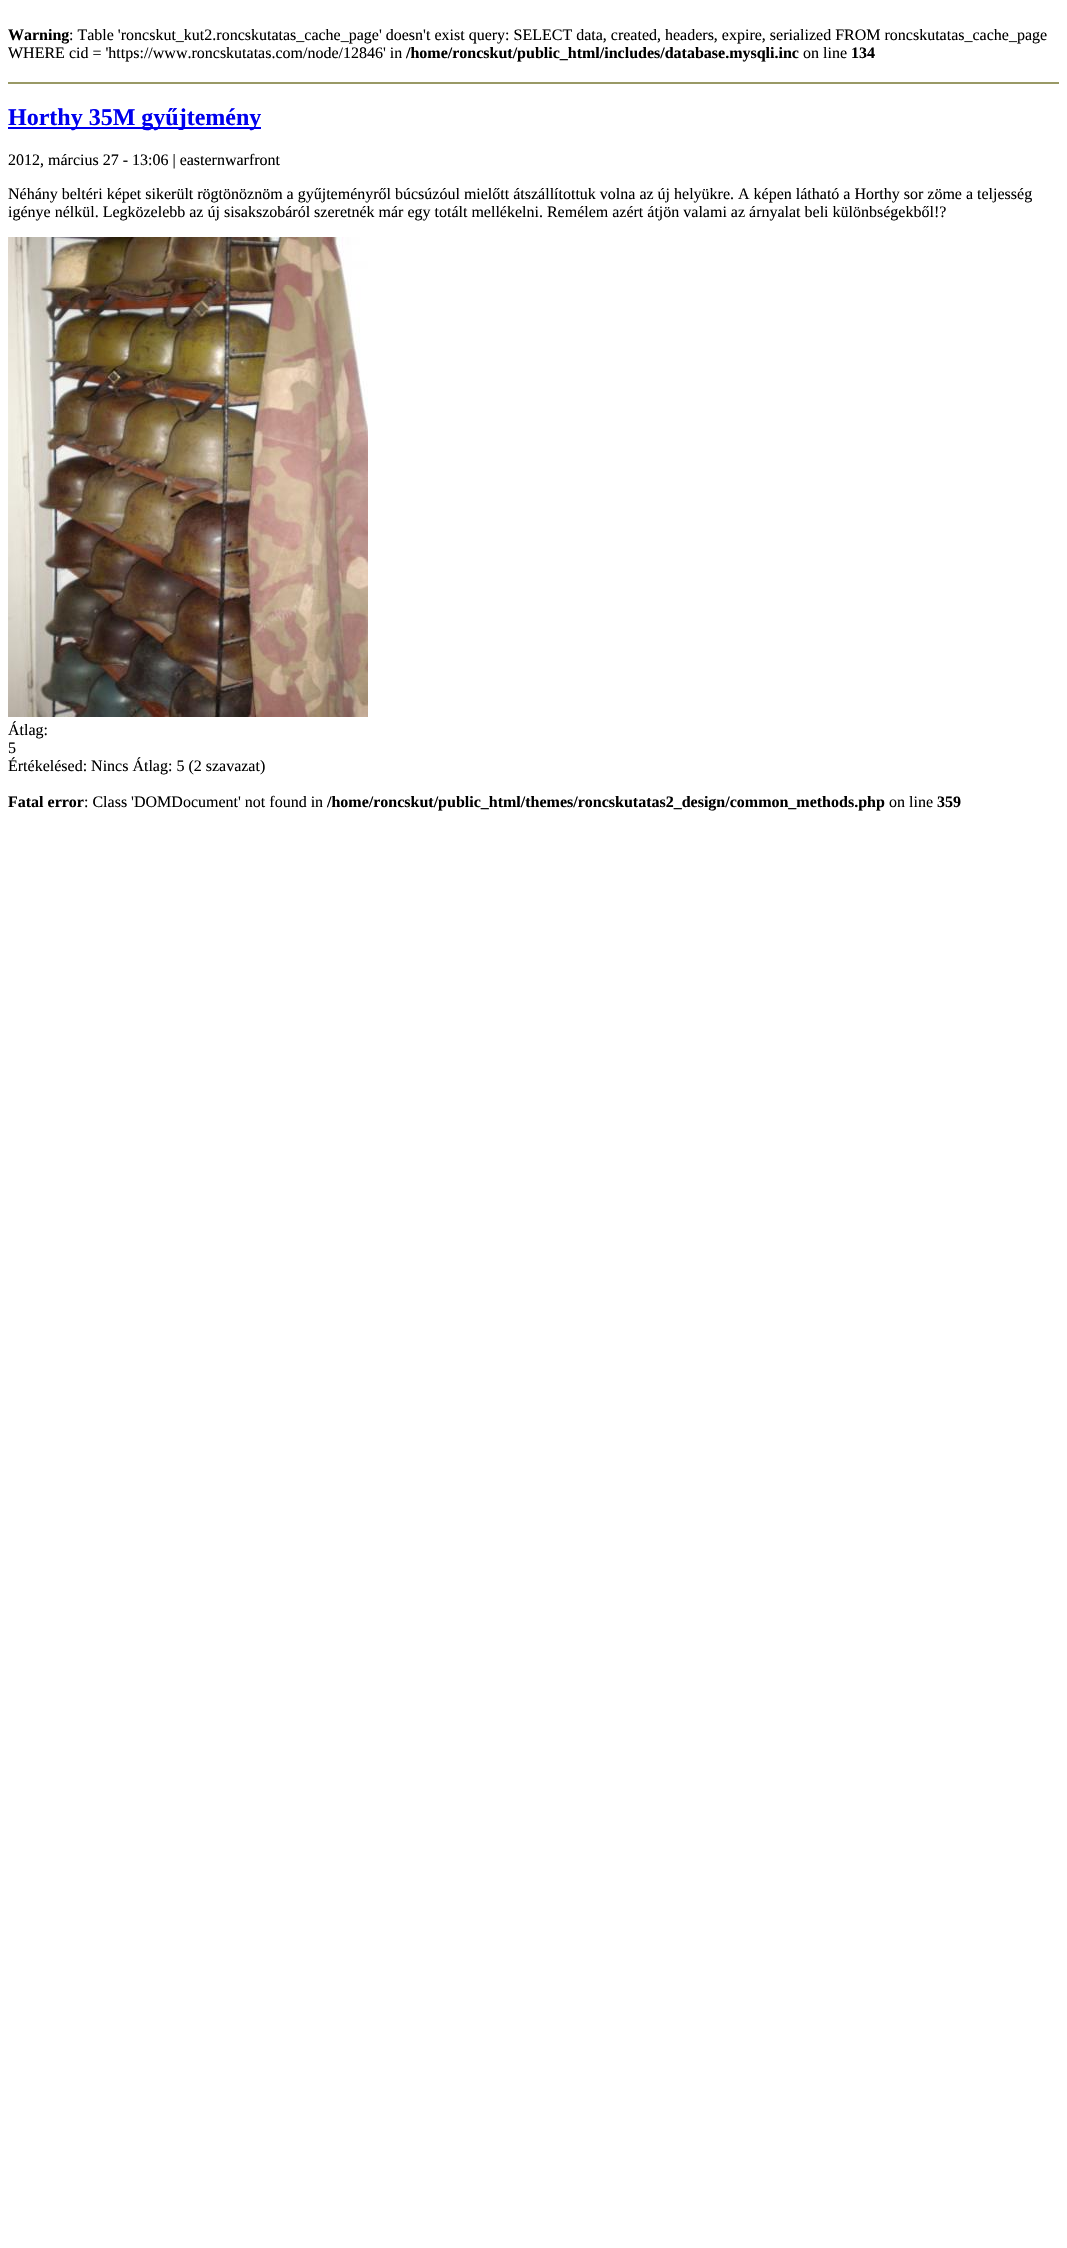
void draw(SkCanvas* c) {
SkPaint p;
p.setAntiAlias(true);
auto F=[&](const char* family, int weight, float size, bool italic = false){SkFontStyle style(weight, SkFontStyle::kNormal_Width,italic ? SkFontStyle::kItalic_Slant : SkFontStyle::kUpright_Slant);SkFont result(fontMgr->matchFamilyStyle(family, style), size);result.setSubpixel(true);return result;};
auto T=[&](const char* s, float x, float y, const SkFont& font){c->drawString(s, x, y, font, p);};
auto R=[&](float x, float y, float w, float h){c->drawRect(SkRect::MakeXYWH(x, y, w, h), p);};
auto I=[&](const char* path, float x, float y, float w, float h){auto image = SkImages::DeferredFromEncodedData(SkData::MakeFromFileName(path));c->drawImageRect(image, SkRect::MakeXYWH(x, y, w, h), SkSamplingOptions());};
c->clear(0xffffffff);
auto f1 = F("Liberation Serif",700,16);
p.setColor(0xff000000);
T("Warning",8,40,f1);
auto f2 = F("Liberation Serif",400,16);
T(": Table 'roncskut_kut2.roncskutatas_cache_page' doesn't exist query: SELECT data, created, headers, expire, serialized FROM roncskutatas_cache_page",69,40,f2);
T("WHERE cid = 'https://www.roncskutatas.com/node/12846' in",8,58,f2);
T("/home/roncskut/public_html/includes/database.mysqli.inc",406,58,f1);
T("on line",803,58,f2);
T("134",851,58,f1);
p.setColor(0xff999966);
R(8,82,1051,2);
p.setColor(0xff0000ee);
R(8,127,253,2);
auto f3 = F("Liberation Serif",700,24);
T("Horthy 35M gyűjtemény",8,125,f3);
p.setColor(0xff000000);
T("2012, március 27 - 13:06 | easternwarfront",8,165,f2);
T("Néhány beltéri képet sikerült rögtönöznöm a gyűjteményről búcsúzóul mielőtt átszállítottuk volna az új helyükre. A képen látható a Horthy sor zöme a teljesség",8,199,f2);
T("igénye nélkül. Legközelebb az új sisakszobáról szeretnék már egy totált mellékelni. Remélem azért átjön valami az árnyalat beli különbségekből!?",8,217,f2);
I("1.png",8,237,360,480);
T("Átlag:",8,735,f2);
T("5",8,753,f2);
T("Értékelésed: Nincs Átlag: 5 (2 szavazat)",8,771,f2);
T("Fatal error",8,807,f1);
T(": Class 'DOMDocument' not found in",84,807,f2);
T("/home/roncskut/public_html/themes/roncskutatas2_design/common_methods.php",327,807,f1);
T("on line",889,807,f2);
T("359",937,807,f1);
}
